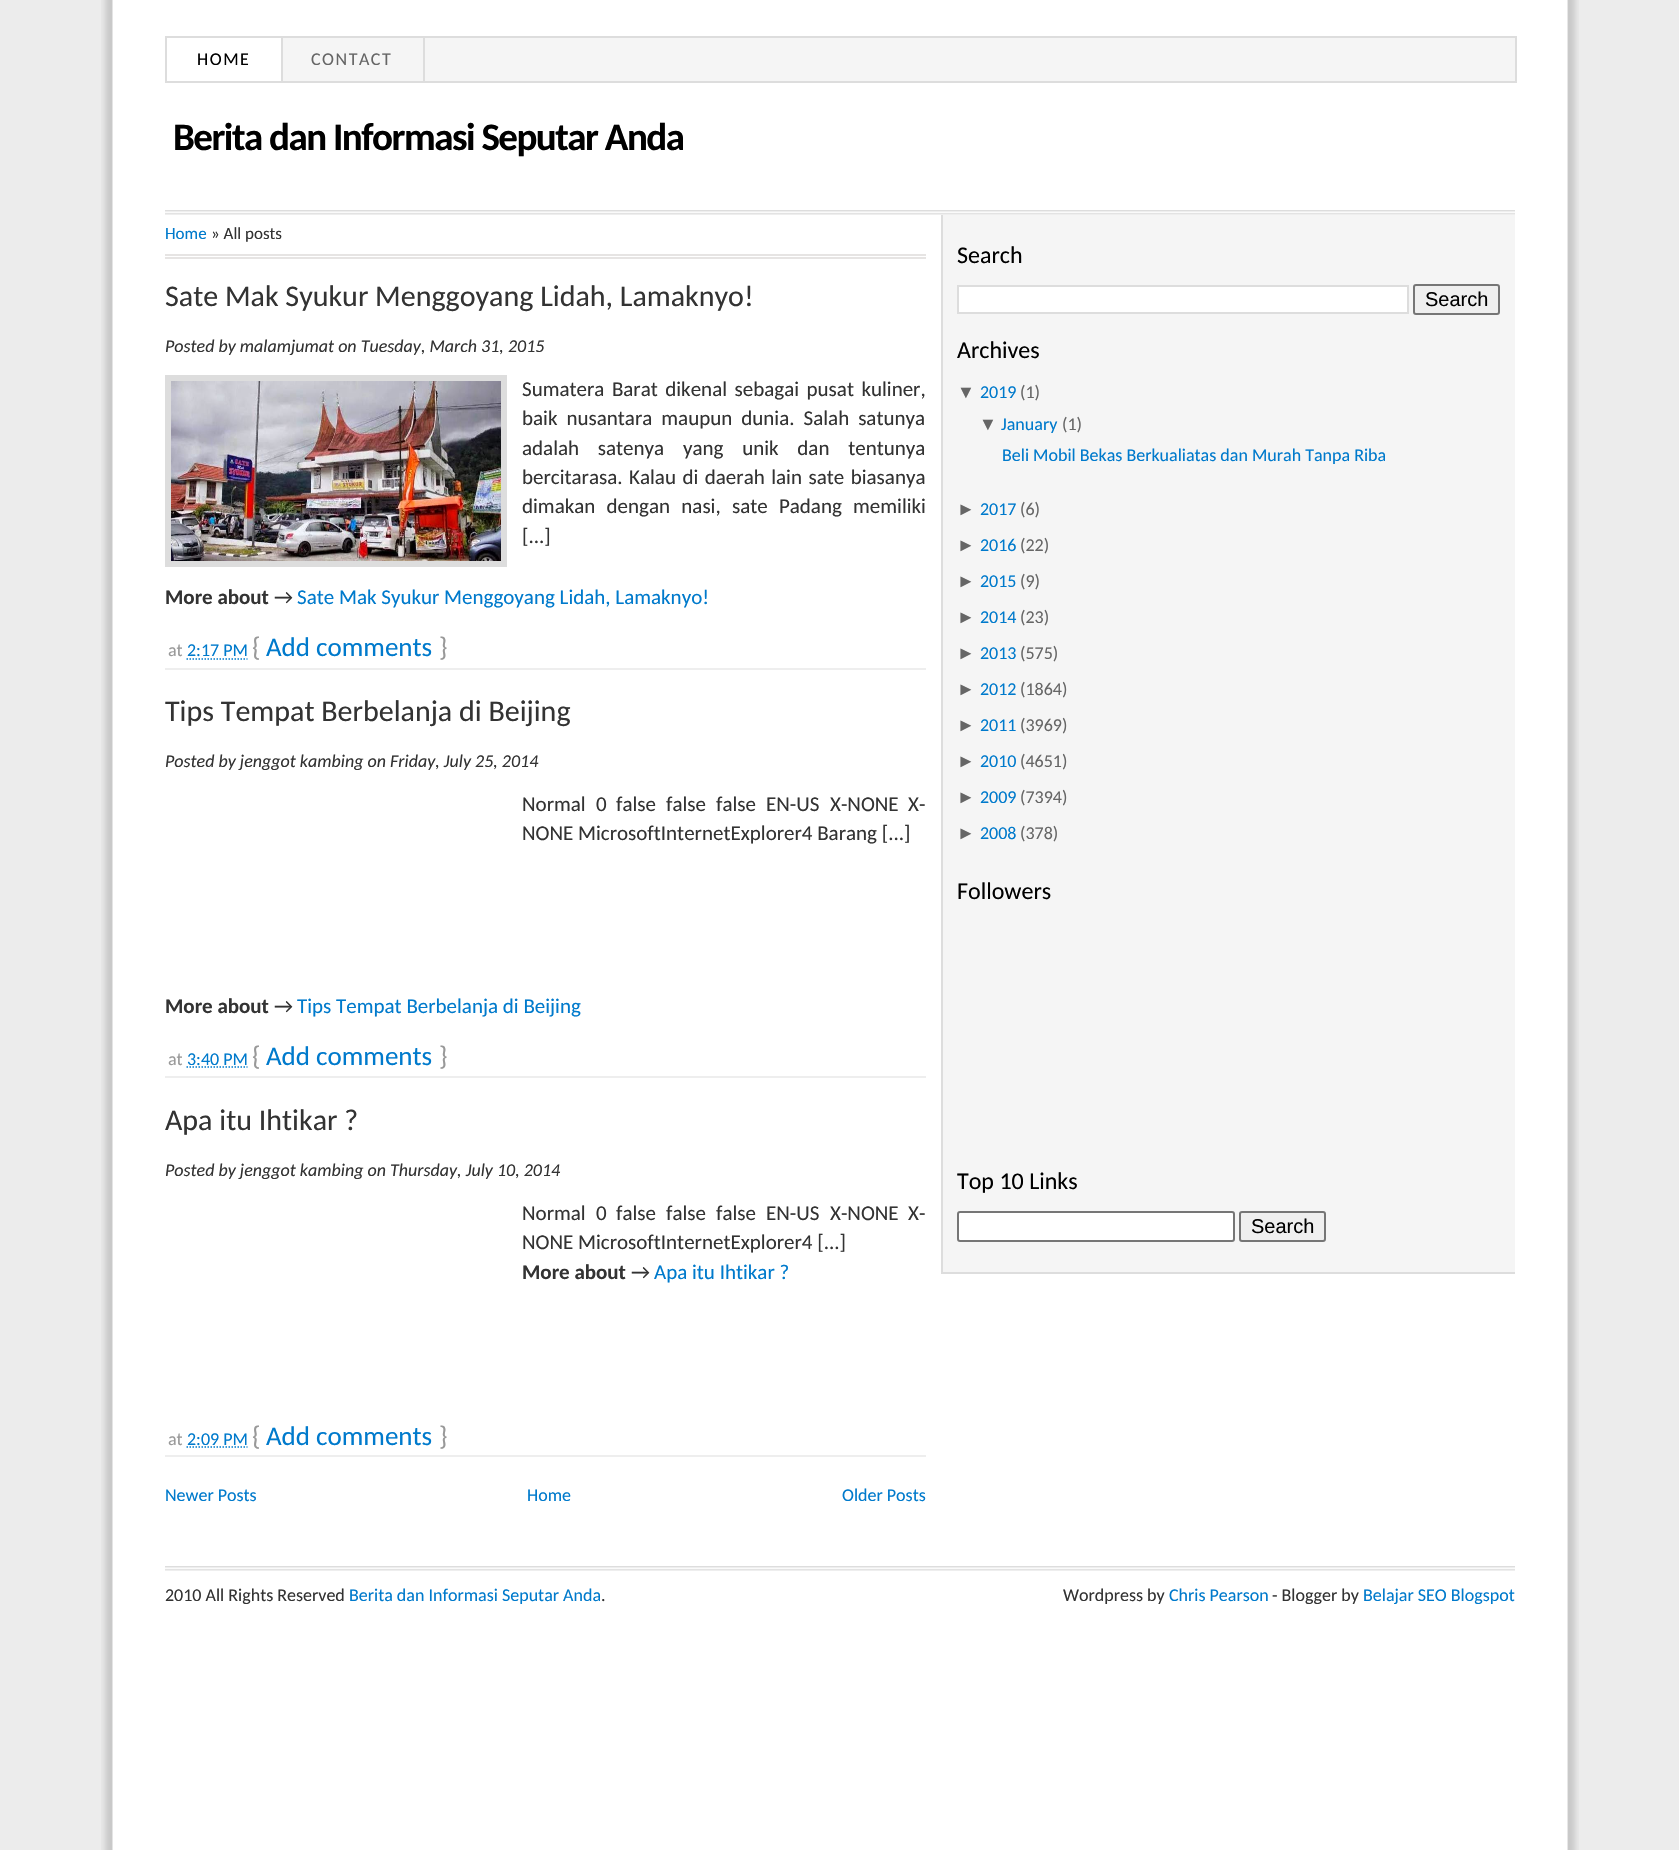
void draw(SkCanvas* c) {
SkPaint p;
p.setAntiAlias(true);
auto F=[&](const char* family, int weight, float size, bool italic = false){SkFontStyle style(weight, SkFontStyle::kNormal_Width,italic ? SkFontStyle::kItalic_Slant : SkFontStyle::kUpright_Slant);SkFont result(fontMgr->matchFamilyStyle(family, style), size);result.setSubpixel(true);return result;};
auto T=[&](const char* s, float x, float y, const SkFont& font){c->drawString(s, x, y, font, p);};
auto L=[&](const char* s, float x, float y, const SkFont& font, const SkPaint& ink, float letter, float word){std::vector<SkGlyphID> glyphs(font.countText(s, strlen(s), SkTextEncoding::kUTF8));std::vector<float> xs(glyphs.size());font.textToGlyphs(s, strlen(s), SkTextEncoding::kUTF8, glyphs);font.getXPos(glyphs, xs, x);float extra = 0;for (size_t i = 0; i < glyphs.size(); i++) {xs[i] += extra;extra += letter + word * (glyphs[i] == font.unicharToGlyph(' '));}c->drawTextBlob(SkTextBlob::MakeFromPosHGlyphs(glyphs, xs, y, font), 0, 0, ink);};
auto R=[&](float x, float y, float w, float h){c->drawRect(SkRect::MakeXYWH(x, y, w, h), p);};
auto I=[&](const char* path, float x, float y, float w, float h){auto image = SkImages::DeferredFromEncodedData(SkData::MakeFromFileName(path));c->drawImageRect(image, SkRect::MakeXYWH(x, y, w, h), SkSamplingOptions());};
auto P=[&](const char* data, bool evenOdd = false){SkPath result = *SkParsePath::FromSVGString(data);if (evenOdd) result.setFillType(SkPathFillType::kEvenOdd);return result;};
c->clear(0xffececec);
I("1.png",101,0,1478,1850);
I("2.png",165,210,1350,5);
p.setColor(0xfff5f5f5);
R(283,38,1232,43);
p.setColor(0xffdddddd);
R(165,36,1352,2);
R(1515,36,2,47);
R(283,81,1234,2);
R(165,38,2,45);
R(281,38,2,45);
R(167,81,115,2);
auto f1 = F("Carlito",400,18);
p.setColor(0xff000000);
L("HOME",197,65,f1,p,1.5,0);
p.setColor(0xffdddddd);
R(423,38,2,45);
p.setColor(0xff666666);
L("CONTACT",311,65,f1,p,1.5,0);
auto f2 = F("Carlito",700,39);
p.setColor(0xff000000);
L("Berita dan Informasi Seputar Anda",173,150,f2,p,-1.5,0);
p.setColor(0xffe6e4e3);
R(165,254,761,2);
R(165,257,761,2);
auto f3 = F("Carlito",400,17);
p.setColor(0xff007acc);
T("Home",165,239,f3);
p.setColor(0xff333333);
T("» All posts",211,239,f3);
auto f4 = F("Carlito",400,30);
T("Sate Mak Syukur Menggoyang Lidah, Lamaknyo!",165,306,f4);
auto f5 = F("Carlito",400,18,true);
T("Posted by malamjumat on Tuesday, March 31, 2015",165,352,f5);
p.setStroke(true);
p.setStrokeWidth(6);
p.setColor(0xffdddddd);
c->drawRect(SkRect::MakeXYWH(168,378,336,186),p);
I("3.png",171,381,330,180);
auto f6 = F("Carlito",400,21);
p.setStroke(false);
p.setColor(0xff333333);
L("Sumatera Barat dikenal sebagai pusat kuliner,",522,396,f6,p,0,2.75);
L("baik nusantara maupun dunia. Salah satunya",522,425,f6,p,0,4.25);
L("adalah satenya yang unik dan tentunya",522,455,f6,p,0,14);
L("bercitarasa. Kalau di daerah lain sate biasanya",522,484,f6,p,0,1.75);
L("dimakan dengan nasi, sate Padang memiliki",522,513,f6,p,0,6.5);
T("[...]",522,543,f6);
auto f7 = F("Carlito",700,21);
T("More about",165,604,f7);
T("→",274,604,f6);
p.setColor(0xff007acc);
T("Sate Mak Syukur Menggoyang Lidah, Lamaknyo!",297,604,f6);
p.setColor(0xffeeeeee);
R(165,668,761,2);
p.setColor(0xff999999);
T("at",168,656,f1);
p.setColor(0xff007acc);
T("2:17 PM",187,656,f1);
p.setStroke(true);
p.setStrokeWidth(1.5);
p.setPathEffect(SkDashPathEffect::Make({{1.5f,1.5f}}, 0));
c->drawPath(P("M186.5 659h61"),p);
p.setPathEffect(nullptr);
auto f8 = F("Carlito",400,27);
p.setStroke(false);
p.setColor(0xff999999);
T("{",252,656,f8);
p.setColor(0xff007acc);
T("Add comments",266,656,f8);
p.setColor(0xff999999);
T("}",439,656,f8);
p.setColor(0xff333333);
T("Tips Tempat Berbelanja di Beijing",165,721,f4);
T("Posted by jenggot kambing on Friday, July 25, 2014",165,767,f5);
T("Normal",522,811,f6);
T("0",596,811,f6);
T("false",616,811,f6);
T("false",666,811,f6);
T("false",716,811,f6);
T("EN-US",766,811,f6);
T("X-NONE",830,811,f6);
T("X-",908,811,f6);
T("NONE MicrosoftInternetExplorer4 Barang [...]",522,840,f6);
T("More about",165,1013,f7);
T("→",274,1013,f6);
p.setColor(0xff007acc);
T("Tips Tempat Berbelanja di Beijing",297,1013,f6);
p.setColor(0xffeeeeee);
R(165,1076,761,2);
p.setColor(0xff999999);
T("at",168,1065,f1);
p.setColor(0xff007acc);
T("3:40 PM",187,1065,f1);
p.setStroke(true);
p.setPathEffect(SkDashPathEffect::Make({{1.5f,1.5f}}, 0));
c->drawPath(P("M186.5 1067h61"),p);
p.setPathEffect(nullptr);
p.setStroke(false);
p.setColor(0xff999999);
T("{",252,1065,f8);
p.setColor(0xff007acc);
T("Add comments",266,1065,f8);
p.setColor(0xff999999);
T("}",439,1065,f8);
p.setColor(0xff333333);
T("Apa itu Ihtikar ?",165,1130,f4);
T("Posted by jenggot kambing on Thursday, July 10, 2014",165,1176,f5);
T("Normal",522,1220,f6);
T("0",596,1220,f6);
T("false",616,1220,f6);
T("false",666,1220,f6);
T("false",716,1220,f6);
T("EN-US",766,1220,f6);
T("X-NONE",830,1220,f6);
T("X-",908,1220,f6);
T("NONE MicrosoftInternetExplorer4 [...]",522,1249,f6);
T("More about",522,1279,f7);
T("→",631,1279,f6);
p.setColor(0xff007acc);
T("Apa itu Ihtikar ?",654,1279,f6);
p.setColor(0xffeeeeee);
R(165,1455,761,2);
p.setColor(0xff999999);
T("at",168,1445,f1);
p.setColor(0xff007acc);
T("2:09 PM",187,1445,f1);
p.setStroke(true);
p.setPathEffect(SkDashPathEffect::Make({{1.5f,1.5f}}, 0));
c->drawPath(P("M186.5 1447h61"),p);
p.setPathEffect(nullptr);
p.setStroke(false);
p.setColor(0xff999999);
T("{",252,1445,f8);
p.setColor(0xff007acc);
T("Add comments",266,1445,f8);
p.setColor(0xff999999);
T("}",439,1445,f8);
p.setColor(0xff007acc);
T("Newer Posts",165,1501,f1);
T("Home",527,1501,f1);
T("Older Posts",842,1501,f1);
p.setColor(0xfff5f5f5);
R(943,215,572,1057);
p.setColor(0xffdddddd);
R(941,1272,574,2);
R(941,215,2,1059);
auto f9 = F("Carlito",400,24);
p.setColor(0xff000000);
T("Search",957,263,f9);
p.setColor(0xffffffff);
c->drawRect(SkRect::MakeXYWH(958,286,450,27),p);
p.setStroke(true);
p.setStrokeWidth(2);
p.setColor(0xffdddddd);
c->drawRect(SkRect::MakeXYWH(958,286,450,27),p);
p.setStroke(false);
p.setColor(0xffefefef);
c->drawRoundRect(SkRect::MakeXYWH(1414,285,85,29),2,2,p);
p.setStroke(true);
p.setColor(0xff767676);
c->drawRoundRect(SkRect::MakeXYWH(1414,285,85,29),2,2,p);
auto f10 = F("Liberation Sans",400,20);
p.setStroke(false);
p.setColor(0xff000000);
T("Search",1425,306,f10);
T("Archives",957,358,f9);
auto f11 = F("Liberation Sans",400,18);
p.setColor(0xff666666);
T("▼",957,398,f11);
p.setColor(0xff007acc);
T("2019",980,398,f1);
p.setColor(0xff666666);
T("(1)",1020,398,f1);
T("▼",979,430,f11);
p.setColor(0xff007acc);
T("January",1001,430,f1);
p.setColor(0xff666666);
T("(1)",1062,430,f1);
p.setColor(0xff007acc);
T("Beli Mobil Bekas Berkualiatas dan Murah Tanpa Riba",1002,461,f1);
p.setColor(0xff666666);
T("►",957,515,f11);
p.setColor(0xff007acc);
T("2017",980,515,f1);
p.setColor(0xff666666);
T("(6)",1020,515,f1);
T("►",957,551,f11);
p.setColor(0xff007acc);
T("2016",980,551,f1);
p.setColor(0xff666666);
T("(22)",1020,551,f1);
T("►",957,587,f11);
p.setColor(0xff007acc);
T("2015",980,587,f1);
p.setColor(0xff666666);
T("(9)",1020,587,f1);
T("►",957,623,f11);
p.setColor(0xff007acc);
T("2014",980,623,f1);
p.setColor(0xff666666);
T("(23)",1020,623,f1);
T("►",957,659,f11);
p.setColor(0xff007acc);
T("2013",980,659,f1);
p.setColor(0xff666666);
T("(575)",1020,659,f1);
T("►",957,695,f11);
p.setColor(0xff007acc);
T("2012",980,695,f1);
p.setColor(0xff666666);
T("(1864)",1020,695,f1);
T("►",957,731,f11);
p.setColor(0xff007acc);
T("2011",980,731,f1);
p.setColor(0xff666666);
T("(3969)",1020,731,f1);
T("►",957,767,f11);
p.setColor(0xff007acc);
T("2010",980,767,f1);
p.setColor(0xff666666);
T("(4651)",1020,767,f1);
T("►",957,803,f11);
p.setColor(0xff007acc);
T("2009",980,803,f1);
p.setColor(0xff666666);
T("(7394)",1020,803,f1);
T("►",957,839,f11);
p.setColor(0xff007acc);
T("2008",980,839,f1);
p.setColor(0xff666666);
T("(378)",1020,839,f1);
p.setColor(0xff000000);
T("Followers",957,899,f9);
T("Top 10 Links",957,1189,f9);
p.setColor(0xffffffff);
c->drawRoundRect(SkRect::MakeXYWH(958,1212,276,29),2,2,p);
p.setStroke(true);
p.setColor(0xff767676);
c->drawRoundRect(SkRect::MakeXYWH(958,1212,276,29),2,2,p);
p.setStroke(false);
p.setColor(0xffefefef);
c->drawRoundRect(SkRect::MakeXYWH(1240,1212,85,29),2,2,p);
p.setStroke(true);
p.setColor(0xff767676);
c->drawRoundRect(SkRect::MakeXYWH(1240,1212,85,29),2,2,p);
p.setStroke(false);
p.setColor(0xff000000);
T("Search",1251,1233,f10);
I("2.png",165,1566,1350,5);
p.setColor(0xff333333);
T("2010 All Rights Reserved",165,1601,f1);
p.setColor(0xff007acc);
T("Berita dan Informasi Seputar Anda",349,1601,f1);
p.setColor(0xff333333);
T(".",601,1601,f1);
T("Wordpress by",1063,1601,f1);
p.setColor(0xff007acc);
T("Chris Pearson",1169,1601,f1);
p.setColor(0xff333333);
T("- Blogger by",1272,1601,f1);
p.setColor(0xff007acc);
T("Belajar SEO Blogspot",1363,1601,f1);
}
